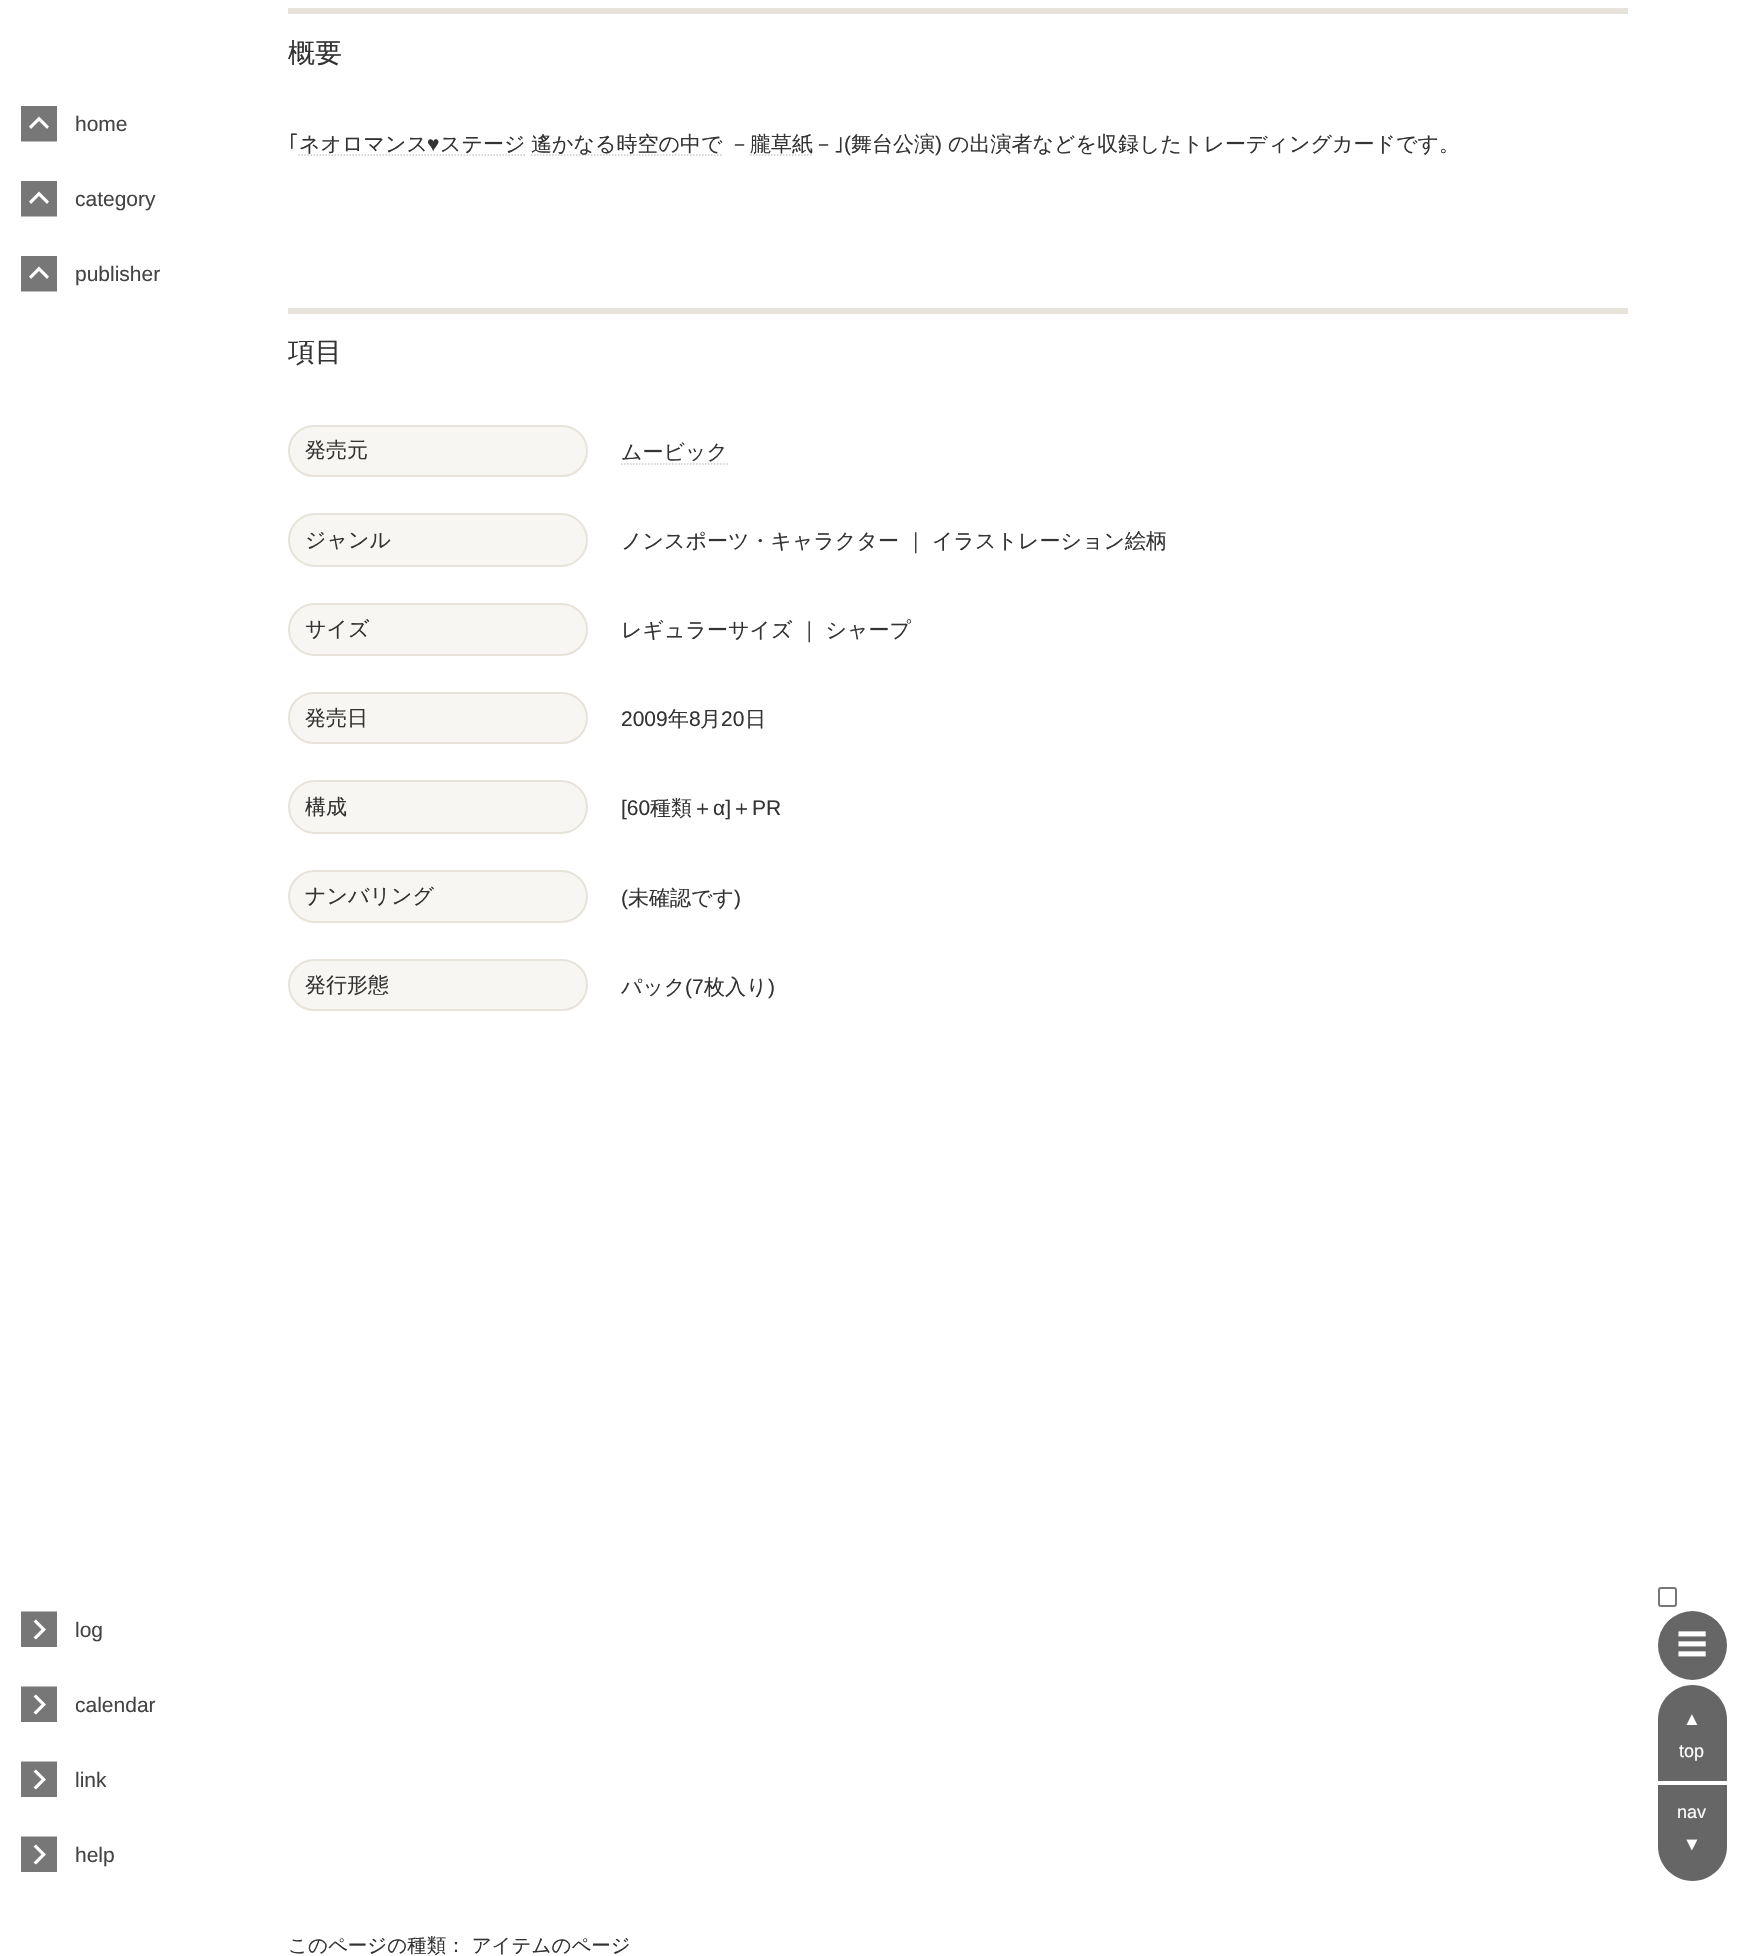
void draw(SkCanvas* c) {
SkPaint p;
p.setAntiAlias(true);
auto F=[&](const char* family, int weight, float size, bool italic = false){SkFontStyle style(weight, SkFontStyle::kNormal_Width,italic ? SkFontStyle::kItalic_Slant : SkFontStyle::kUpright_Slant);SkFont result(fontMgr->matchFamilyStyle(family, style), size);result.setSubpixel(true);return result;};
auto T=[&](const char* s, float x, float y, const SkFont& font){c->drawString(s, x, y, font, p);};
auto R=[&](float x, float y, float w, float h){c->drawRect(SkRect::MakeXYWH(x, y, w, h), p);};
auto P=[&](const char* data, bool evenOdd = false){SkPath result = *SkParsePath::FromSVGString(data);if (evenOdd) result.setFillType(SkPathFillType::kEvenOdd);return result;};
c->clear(0xffffffff);
p.setColor(0xff777777);
c->drawPath(P("M31 129l-2-2.5l10-10l10 10l-2 2.5l-8-8zm-10 12.5h36v-35.5h-36z",true),p);
auto f1 = F("Liberation Sans",400,21);
p.setColor(0xff444444);
T("home",75,131,f1);
p.setColor(0xff777777);
c->drawPath(P("M31 204l-2-2.5l10-10l10 10l-2 2.5l-8-8zm-10 12.5h36v-35.5h-36z",true),p);
p.setColor(0xff444444);
T("category",75,206,f1);
p.setColor(0xff777777);
c->drawPath(P("M31 279l-2-2.5l10-10l10 10l-2 2.5l-8-8zm-10 12.5h36v-35.5h-36z",true),p);
p.setColor(0xff444444);
T("publisher",75,281,f1);
p.setColor(0xff777777);
c->drawPath(P("M21 1611.5v35.5h36v-35.5zm12.5 10l2.5-2l10 10l-10 10l-2.5-2l8-8z",true),p);
p.setColor(0xff444444);
T("log",75,1637,f1);
p.setColor(0xff777777);
c->drawPath(P("M21 1686.5v35.5h36v-35.5zm12.5 10l2.5-2l10 10l-10 10l-2.5-2l8-8z",true),p);
p.setColor(0xff444444);
T("calendar",75,1712,f1);
p.setColor(0xff777777);
c->drawPath(P("M21 1761.5v35.5h36v-35.5zm12.5 10l2.5-2l10 10l-10 10l-2.5-2l8-8z",true),p);
p.setColor(0xff444444);
T("link",75,1787,f1);
p.setColor(0xff777777);
c->drawPath(P("M21 1836.5v35.5h36v-35.5zm12.5 10l2.5-2l10 10l-10 10l-2.5-2l8-8z",true),p);
p.setColor(0xff444444);
T("help",75,1862,f1);
p.setColor(0xffe7e3da);
R(288,8,1340,6);
auto f2 = F("WenQuanYi Zen Hei",500,27);
p.setColor(0xff333333);
T("概要",288,62,f2);
auto f3 = F("IPAPGothic",400,21);
T("｢",288,151,f3);
p.setStroke(true);
p.setStrokeWidth(1.5);
p.setColor(0xffcccccc);
p.setPathEffect(SkDashPathEffect::Make({{1.5f,1.5f}}, 0));
c->drawPath(P("M298.5 155h226.5"),p);
p.setPathEffect(nullptr);
auto f4 = F("WenQuanYi Zen Hei",500,21);
p.setStroke(false);
p.setColor(0xff333333);
T("ネオロマンス",299,151,f4);
T("♥",427,151,f1);
T("ステージ",440,151,f4);
p.setStroke(true);
p.setColor(0xffcccccc);
p.setPathEffect(SkDashPathEffect::Make({{1.5f,1.5f}}, 0));
c->drawPath(P("M531 155h192"),p);
p.setPathEffect(nullptr);
p.setStroke(false);
p.setColor(0xff333333);
T("遙かなる時空の中で",531,151,f4);
T("－朧草紙－",729,151,f4);
T("｣",834,151,f3);
T("(",844,151,f1);
T("舞台公演",851,151,f4);
T(")",935,151,f1);
T("の出演者などを収録したトレーディングカードです。",948,151,f4);
p.setStroke(true);
p.setColor(0xffcccccc);
p.setPathEffect(SkDashPathEffect::Make({{1.5f,1.5f}}, 0));
c->drawPath(P("M750 155h63"),p);
p.setPathEffect(nullptr);
p.setStroke(false);
p.setColor(0xffe7e3da);
R(288,308,1340,6);
p.setColor(0xff333333);
T("項目",288,361,f2);
p.setColor(0xfff7f6f3);
c->drawRoundRect(SkRect::MakeXYWH(289,426,298,50),25,25,p);
p.setStroke(true);
p.setStrokeWidth(2);
p.setColor(0xffe7e3da);
c->drawRoundRect(SkRect::MakeXYWH(289,426,298,50),25,25,p);
p.setStroke(false);
p.setColor(0xff333333);
T("発売元",305,457,f4);
p.setStroke(true);
p.setStrokeWidth(1.5);
p.setColor(0xffcccccc);
p.setPathEffect(SkDashPathEffect::Make({{1.5f,1.5f}}, 0));
c->drawPath(P("M621 464h106.5"),p);
p.setPathEffect(nullptr);
p.setStroke(false);
p.setColor(0xff333333);
T("ムービック",621,459,f4);
p.setColor(0xfff7f6f3);
c->drawRoundRect(SkRect::MakeXYWH(289,514,298,52),26,26,p);
p.setStroke(true);
p.setStrokeWidth(2);
p.setColor(0xffe7e3da);
c->drawRoundRect(SkRect::MakeXYWH(289,514,298,52),26,26,p);
p.setStroke(false);
p.setColor(0xff333333);
T("ジャンル",305,547,f4);
T("ノンスポーツ・キャラクター ｜ イラストレーション絵柄",621,548,f4);
p.setColor(0xfff7f6f3);
c->drawRoundRect(SkRect::MakeXYWH(289,604,298,51),25.5,25.5,p);
p.setStroke(true);
p.setColor(0xffe7e3da);
c->drawRoundRect(SkRect::MakeXYWH(289,604,298,51),25.5,25.5,p);
p.setStroke(false);
p.setColor(0xff333333);
T("サイズ",305,636,f4);
T("レギュラーサイズ ｜ シャープ",621,637,f4);
p.setColor(0xfff7f6f3);
c->drawRoundRect(SkRect::MakeXYWH(289,693,298,50),25,25,p);
p.setStroke(true);
p.setColor(0xffe7e3da);
c->drawRoundRect(SkRect::MakeXYWH(289,693,298,50),25,25,p);
p.setStroke(false);
p.setColor(0xff333333);
T("発売日",305,725,f4);
T("2009",621,726,f1);
T("年",668,726,f4);
T("8",689,726,f1);
T("月",700,726,f4);
T("20",721,726,f1);
T("日",745,726,f4);
p.setColor(0xfff7f6f3);
c->drawRoundRect(SkRect::MakeXYWH(289,781,298,52),26,26,p);
p.setStroke(true);
p.setColor(0xffe7e3da);
c->drawRoundRect(SkRect::MakeXYWH(289,781,298,52),26,26,p);
p.setStroke(false);
p.setColor(0xff333333);
T("構成",305,814,f4);
T("[60",621,815,f1);
T("種類＋",650,815,f4);
T("α]",713,815,f1);
T("＋",731,815,f4);
T("PR",752,815,f1);
p.setColor(0xfff7f6f3);
c->drawRoundRect(SkRect::MakeXYWH(289,871,298,51),25.5,25.5,p);
p.setStroke(true);
p.setColor(0xffe7e3da);
c->drawRoundRect(SkRect::MakeXYWH(289,871,298,51),25.5,25.5,p);
p.setStroke(false);
p.setColor(0xff333333);
T("ナンバリング",305,903,f4);
T("(",621,905,f1);
T("未確認です",628,905,f4);
T(")",734,905,f1);
p.setColor(0xfff7f6f3);
c->drawRoundRect(SkRect::MakeXYWH(289,960,298,50),25,25,p);
p.setStroke(true);
p.setColor(0xffe7e3da);
c->drawRoundRect(SkRect::MakeXYWH(289,960,298,50),25,25,p);
p.setStroke(false);
p.setColor(0xff333333);
T("発行形態",305,992,f4);
T("パック",621,994,f4);
T("(7",685,994,f1);
T("枚入り",704,994,f4);
T(")",768,994,f1);
p.setStroke(true);
p.setColor(0xff767676);
c->drawRoundRect(SkRect::MakeXYWH(1659,1588,17,18),2,2,p);
p.setStroke(false);
p.setColor(0xff666666);
c->drawCircle(1692.5,1645.5,34.5,p);
auto f5 = F("WenQuanYi Zen Hei",500,30);
p.setColor(0xffffffff);
T("☰",1677,1655,f5);
p.setColor(0xff666666);
c->drawPath(P("M1692.5 1685c19 0 34.5 15.5 34.5 34.5v61.5h-69v-61.5c0-19 15.5-34.5 34.5-34.5z"),p);
auto f6 = F("Liberation Sans",400,18);
p.setColor(0xffffffff);
T("▲",1683,1725,f6);
T("top",1679,1757,f6);
p.setColor(0xff666666);
c->drawPath(P("M1658 1785h69v61.5c0 19-15.5 34.5-34.5 34.5c-19 0-34.5-15.5-34.5-34.5z"),p);
p.setColor(0xffffffff);
T("nav",1677,1818,f6);
T("▼",1683,1850,f6);
auto f7 = F("WenQuanYi Zen Hei",500,19.5);
p.setColor(0xff333333);
T("このページの種類： アイテムのページ",288,1952,f7);
}
